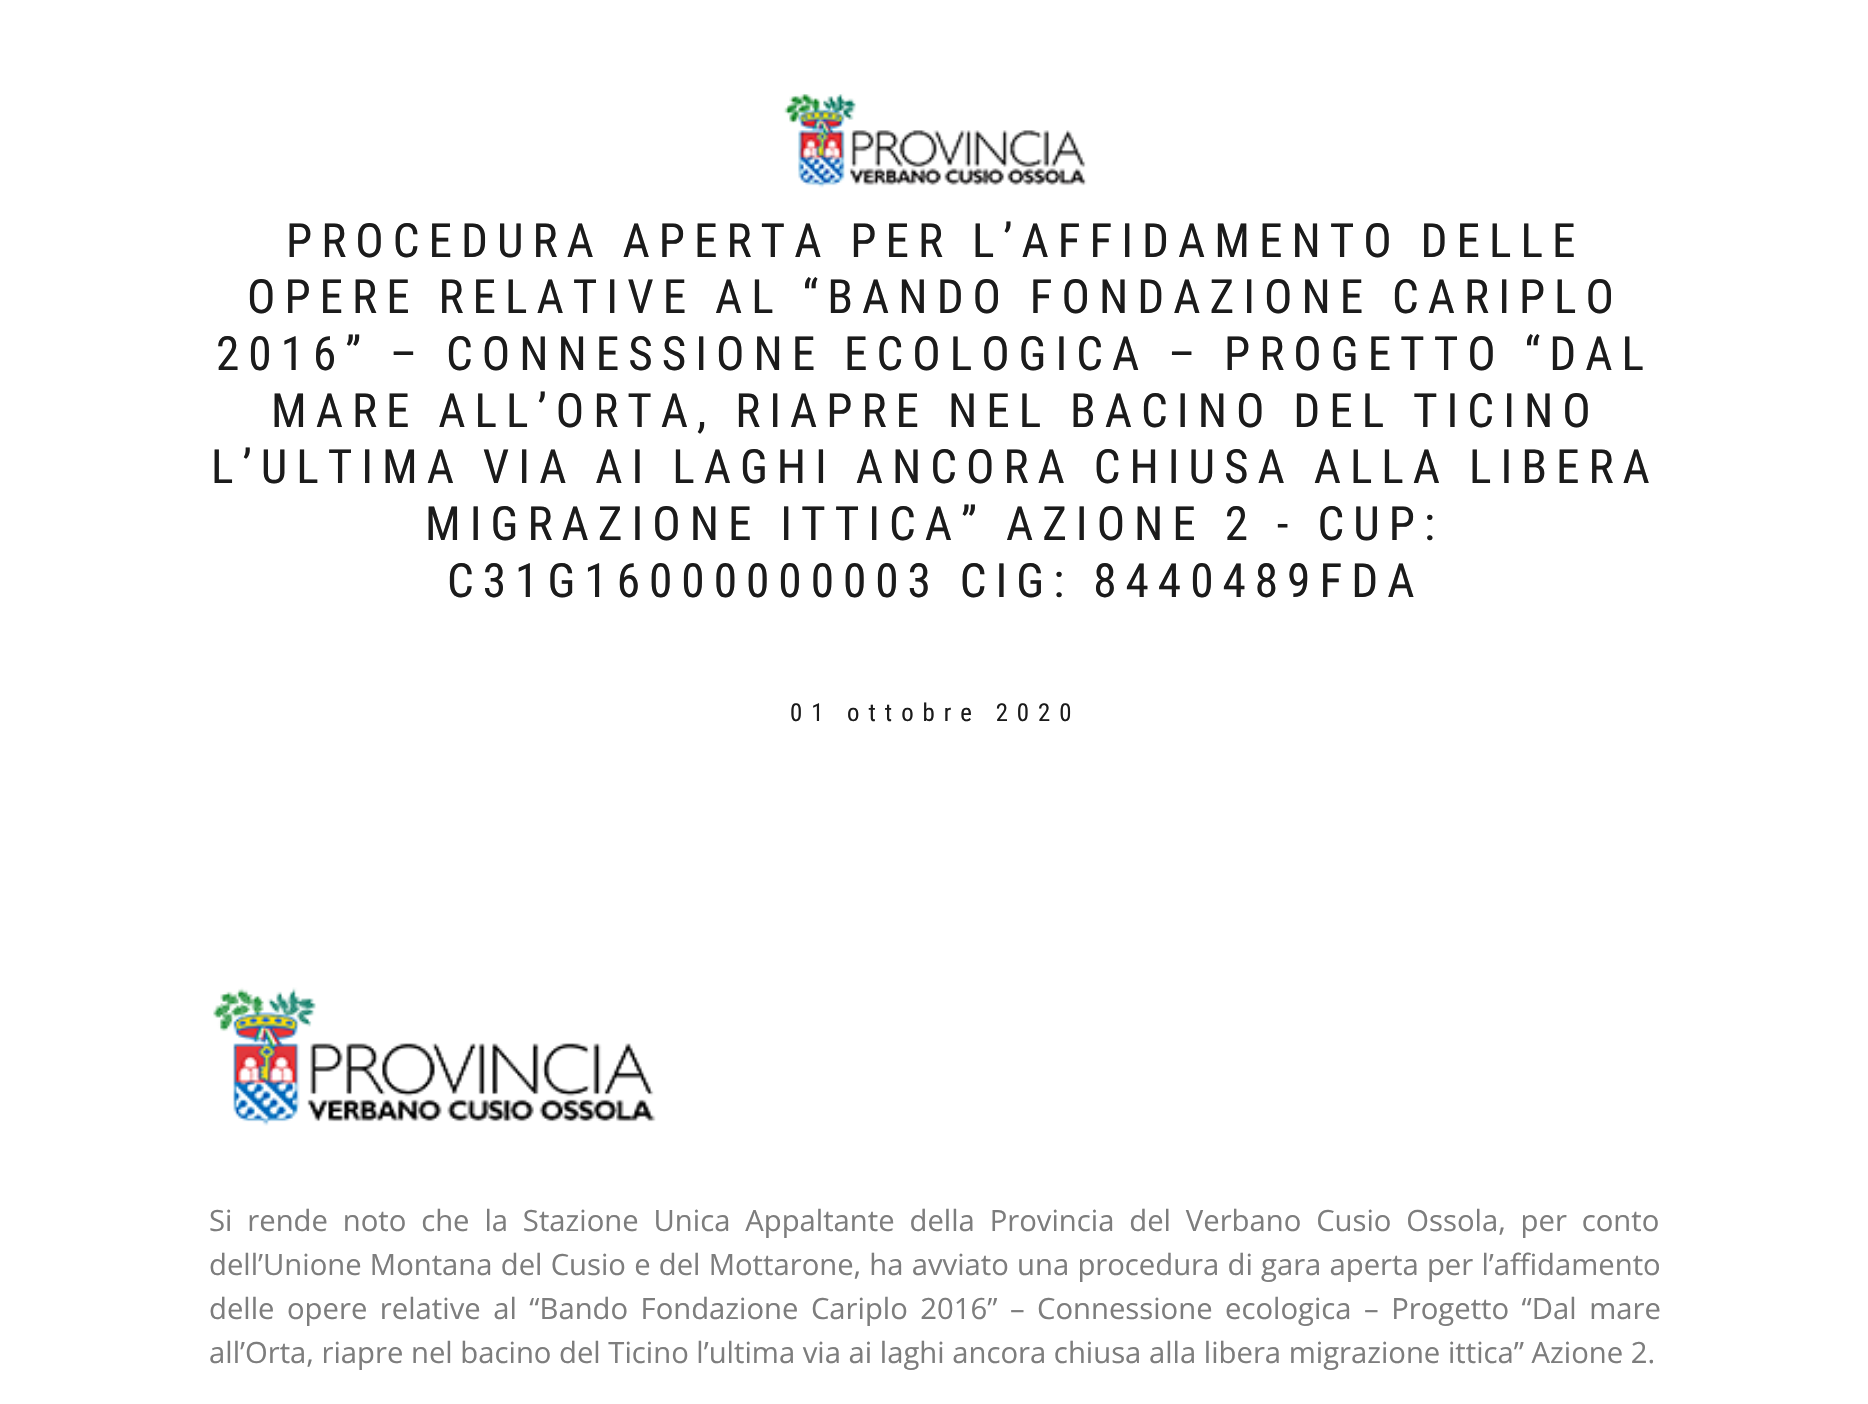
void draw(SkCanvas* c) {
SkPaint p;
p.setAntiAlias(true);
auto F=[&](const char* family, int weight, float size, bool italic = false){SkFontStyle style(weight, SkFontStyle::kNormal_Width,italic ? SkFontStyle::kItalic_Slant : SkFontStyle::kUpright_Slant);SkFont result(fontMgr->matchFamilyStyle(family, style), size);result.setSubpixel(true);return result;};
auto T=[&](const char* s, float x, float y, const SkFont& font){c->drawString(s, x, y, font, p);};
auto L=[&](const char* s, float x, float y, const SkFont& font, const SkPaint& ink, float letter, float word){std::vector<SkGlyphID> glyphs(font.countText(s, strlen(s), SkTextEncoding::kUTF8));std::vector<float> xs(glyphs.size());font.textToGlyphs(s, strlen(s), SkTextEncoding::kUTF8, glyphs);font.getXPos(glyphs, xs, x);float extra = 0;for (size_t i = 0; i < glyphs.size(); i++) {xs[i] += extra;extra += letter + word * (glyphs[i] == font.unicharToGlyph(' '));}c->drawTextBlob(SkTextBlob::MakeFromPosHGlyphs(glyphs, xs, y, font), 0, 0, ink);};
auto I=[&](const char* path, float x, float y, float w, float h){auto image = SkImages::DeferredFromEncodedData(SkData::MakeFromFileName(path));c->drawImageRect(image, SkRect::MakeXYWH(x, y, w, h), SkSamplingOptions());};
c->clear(0xffffffff);
I("1.png",783,92,304,96);
auto f1 = F("Roboto Condensed",400,47.25);
p.setColor(0xff1b1b1b);
L("PROCEDURA APERTA PER L’AFFIDAMENTO DELLE",286,257,f1,p,9,0);
L("OPERE RELATIVE AL “BANDO FONDAZIONE CARIPLO",247,313,f1,p,9,0);
L("2016” – CONNESSIONE ECOLOGICA – PROGETTO “DAL",216,370,f1,p,9,0);
L("MARE ALL’ORTA, RIAPRE NEL BACINO DEL TICINO",271,427,f1,p,9,0);
L("L’ULTIMA VIA AI LAGHI ANCORA CHIUSA ALLA LIBERA",211,483,f1,p,9,0);
L("MIGRAZIONE ITTICA” AZIONE 2 - CUP:",425,540,f1,p,9,0);
L("C31G16000000003 CIG: 8440489FDA",447,597,f1,p,9,0);
auto f2 = F("Roboto Condensed",400,24.75);
L("01 ottobre 2020",790,721,f2,p,9,0);
I("2.png",213,987,443,139);
auto f3 = F("Open Sans",400,29.25);
p.setColor(0xff7d7d7d);
L("Si rende noto che la Stazione Unica Appaltante della Provincia del Verbano Cusio Ossola, per conto",209,1231,f3,p,0,7.25);
L("dell’Unione Montana del Cusio e del Mottarone, ha avviato una procedura di gara aperta per l’affidamento",209,1275,f3,p,0,.6);
L("delle opere relative al “Bando Fondazione Cariplo 2016” – Connessione ecologica – Progetto “Dal mare",209,1319,f3,p,0,4.9);
T("all’Orta, riapre nel bacino del Ticino l’ultima via ai laghi ancora chiusa alla libera migrazione ittica” Azione 2.",209,1363,f3);
}
